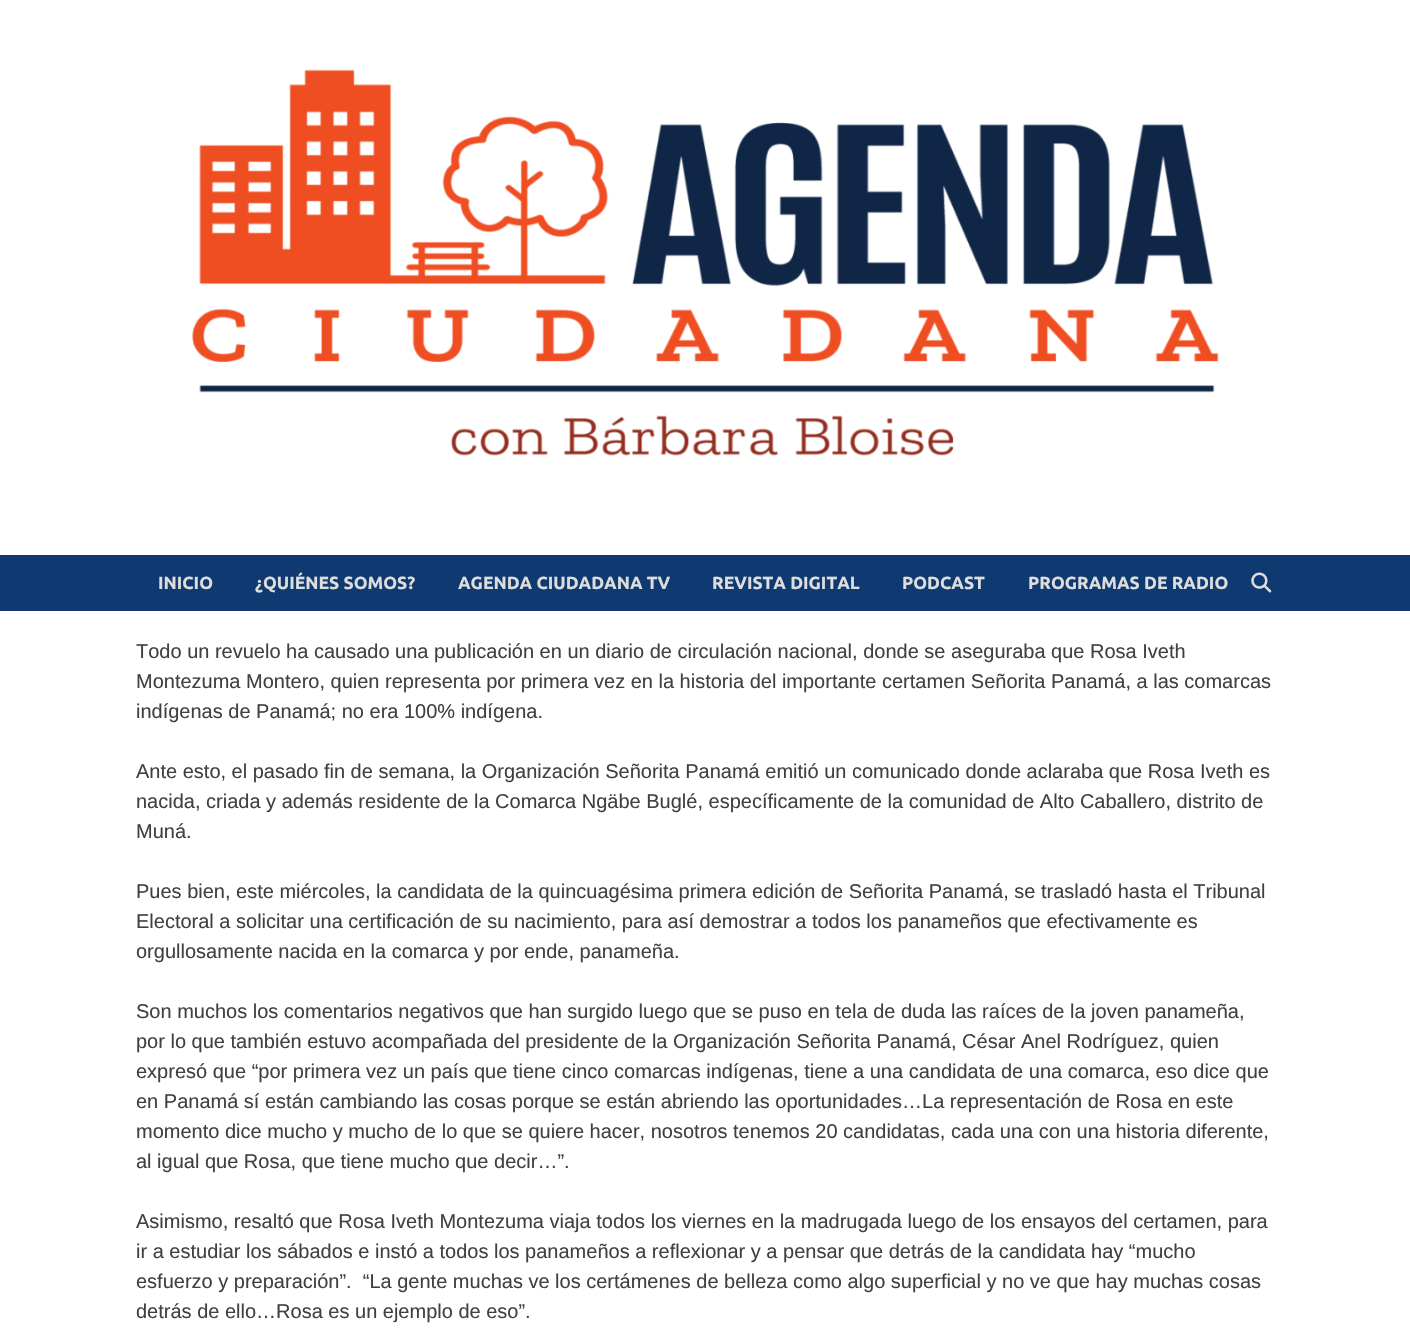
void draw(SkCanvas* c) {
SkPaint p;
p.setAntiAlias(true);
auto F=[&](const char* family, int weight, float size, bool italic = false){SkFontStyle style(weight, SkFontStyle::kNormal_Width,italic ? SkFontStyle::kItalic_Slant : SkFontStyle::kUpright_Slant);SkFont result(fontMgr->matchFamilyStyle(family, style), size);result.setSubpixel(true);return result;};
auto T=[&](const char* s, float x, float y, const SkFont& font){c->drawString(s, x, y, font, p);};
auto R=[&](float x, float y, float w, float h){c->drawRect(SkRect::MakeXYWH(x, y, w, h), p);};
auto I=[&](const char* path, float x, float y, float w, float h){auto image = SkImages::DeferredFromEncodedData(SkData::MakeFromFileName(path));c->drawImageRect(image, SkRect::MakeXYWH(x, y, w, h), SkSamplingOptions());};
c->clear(0xffffffff);
I("1.png",192,69,1027,387);
p.setColor(0xff0f3a71);
R(0,555,1410,56);
auto f1 = F("Ubuntu",700,17.5);
p.setColor(0xffdddddd);
T("INICIO",158,589,f1);
T("¿QUIÉNES SOMOS?",255,589,f1);
T("AGENDA CIUDADANA TV",458,589,f1);
T("REVISTA DIGITAL",712,589,f1);
T("PODCAST",902,589,f1);
T("PROGRAMAS DE RADIO",1028,589,f1);
I("2.png",1251,572,21,21);
auto f2 = F("Liberation Sans",400,20);
p.setColor(0xff404040);
T("Todo un revuelo ha causado una publicación en un diario de circulación nacional, donde se aseguraba que Rosa Iveth",136,658,f2);
T("Montezuma Montero, quien representa por primera vez en la historia del importante certamen Señorita Panamá, a las comarcas",136,688,f2);
T("indígenas de Panamá; no era 100% indígena.",136,718,f2);
T("Ante esto, el pasado fin de semana, la Organización Señorita Panamá emitió un comunicado donde aclaraba que Rosa Iveth es",136,778,f2);
T("nacida, criada y además residente de la Comarca Ngäbe Buglé, específicamente de la comunidad de Alto Caballero, distrito de",136,808,f2);
T("Muná.",136,838,f2);
T("Pues bien, este miércoles, la candidata de la quincuagésima primera edición de Señorita Panamá, se trasladó hasta el Tribunal",136,898,f2);
T("Electoral a solicitar una certificación de su nacimiento, para así demostrar a todos los panameños que efectivamente es",136,928,f2);
T("orgullosamente nacida en la comarca y por ende, panameña.",136,958,f2);
T("Son muchos los comentarios negativos que han surgido luego que se puso en tela de duda las raíces de la joven panameña,",136,1018,f2);
T("por lo que también estuvo acompañada del presidente de la Organización Señorita Panamá, César Anel Rodríguez, quien",136,1048,f2);
T("expresó que “por primera vez un país que tiene cinco comarcas indígenas, tiene a una candidata de una comarca, eso dice que",136,1078,f2);
T("en Panamá sí están cambiando las cosas porque se están abriendo las oportunidades…La representación de Rosa en este",136,1108,f2);
T("momento dice mucho y mucho de lo que se quiere hacer, nosotros tenemos 20 candidatas, cada una con una historia diferente,",136,1138,f2);
T("al igual que Rosa, que tiene mucho que decir…”.",136,1168,f2);
T("Asimismo, resaltó que Rosa Iveth Montezuma viaja todos los viernes en la madrugada luego de los ensayos del certamen, para",136,1228,f2);
T("ir a estudiar los sábados e instó a todos los panameños a reflexionar y a pensar que detrás de la candidata hay “mucho",136,1258,f2);
T("esfuerzo y preparación”.  “La gente muchas ve los certámenes de belleza como algo superficial y no ve que hay muchas cosas",136,1288,f2);
T("detrás de ello…Rosa es un ejemplo de eso”.",136,1318,f2);
}
